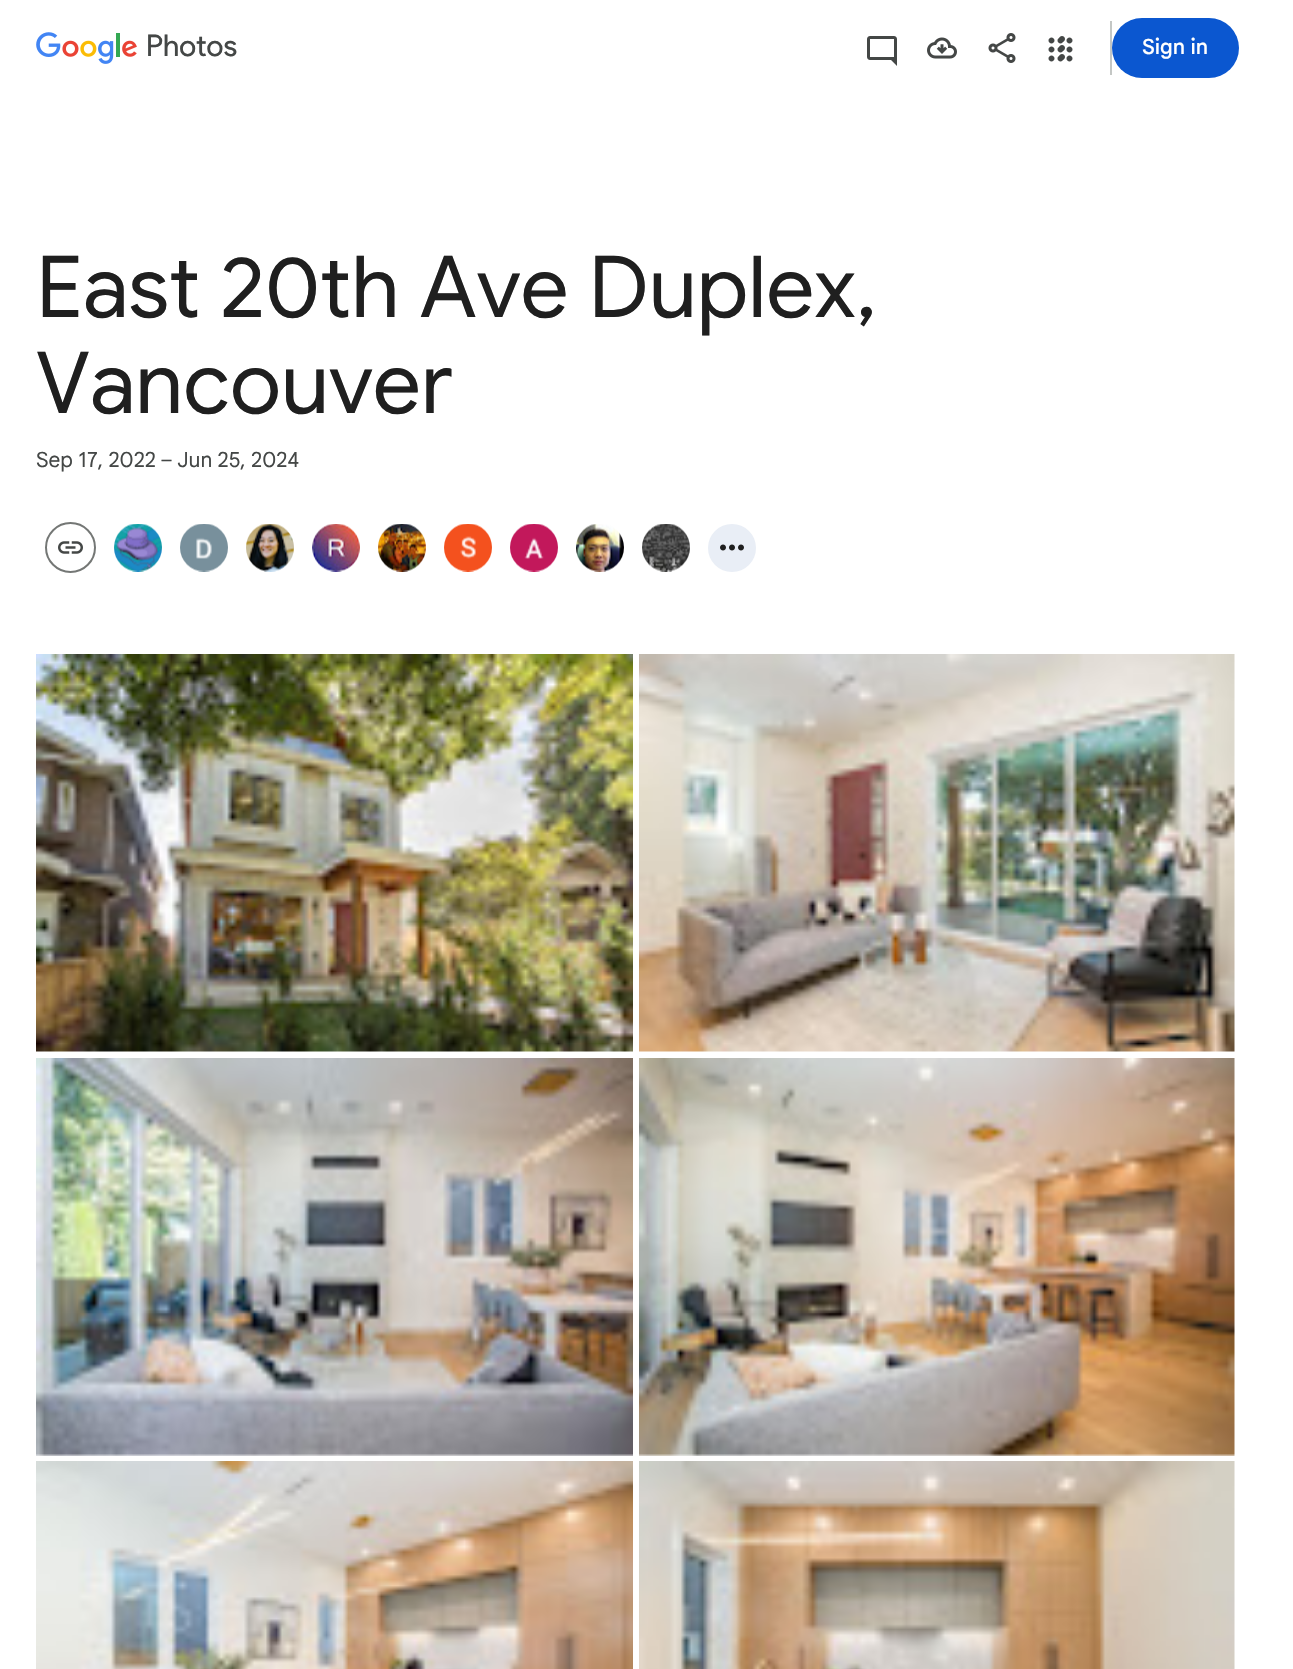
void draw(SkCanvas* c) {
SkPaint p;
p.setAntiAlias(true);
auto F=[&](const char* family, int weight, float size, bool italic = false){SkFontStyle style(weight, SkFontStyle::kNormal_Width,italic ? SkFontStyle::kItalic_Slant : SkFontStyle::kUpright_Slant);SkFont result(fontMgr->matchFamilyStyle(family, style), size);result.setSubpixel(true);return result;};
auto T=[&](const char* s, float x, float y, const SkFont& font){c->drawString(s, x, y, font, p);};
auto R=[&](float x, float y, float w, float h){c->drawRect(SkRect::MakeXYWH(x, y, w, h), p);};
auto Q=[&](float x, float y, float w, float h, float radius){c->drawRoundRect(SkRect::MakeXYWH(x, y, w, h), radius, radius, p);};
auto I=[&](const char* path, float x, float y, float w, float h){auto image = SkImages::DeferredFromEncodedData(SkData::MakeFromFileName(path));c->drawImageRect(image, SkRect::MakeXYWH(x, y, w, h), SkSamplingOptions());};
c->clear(0xffffffff);
I("1.png",36,32,101,32);
auto f1 = F("Product Sans",400,30);
p.setColor(0xff444746);
T("Photos",146,56,f1);
I("2.png",867,36,30,30);
I("3.png",927,37,30,22);
I("4.png",988,33,28,30);
I("5.png",1059,36,6,24);
p.setColor(0xffc4c7c5);
R(1110,21,2,54);
auto f2 = F("Google Sans",400,85.5);
p.setColor(0xff1f1f1f);
T("East 20th Ave Duplex,",36,317,f2);
T("Vancouver",36,413,f2);
auto f3 = F("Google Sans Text",400,21);
p.setColor(0xff444746);
T("Sep 17, 2022 – Jun 25, 2024",36,467,f3);
p.setStroke(true);
p.setStrokeWidth(2);
p.setColor(0xff747775);
c->drawCircle(70.5,547.5,24.5,p);
I("6.png",58,541,25,13);
I("7.png",114,524,48,48);
I("8.png",180,524,48,48);
I("9.png",246,524,48,48);
I("10.png",312,524,48,48);
I("11.png",378,524,48,48);
I("12.png",444,524,48,48);
I("13.png",510,524,48,48);
I("14.png",576,524,48,48);
I("15.png",642,524,48,48);
p.setStroke(false);
p.setColor(0xffe9eef6);
c->drawCircle(732,548,24,p);
I("16.png",720,544,24,7);
I("17.png",36,654,597,398);
I("18.png",639,654,596,398);
I("19.png",36,1058,597,398);
I("20.png",639,1058,596,398);
I("21.png",36,1461,597,208);
I("22.png",639,1461,596,208);
I("23.png",1048,37,25,25);
p.setColor(0xff0b57d0);
Q(1112,18,127,60,30);
auto f4 = F("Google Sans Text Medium",500,21);
p.setColor(0xffffffff);
T("Sign in",1142,54,f4);
}
